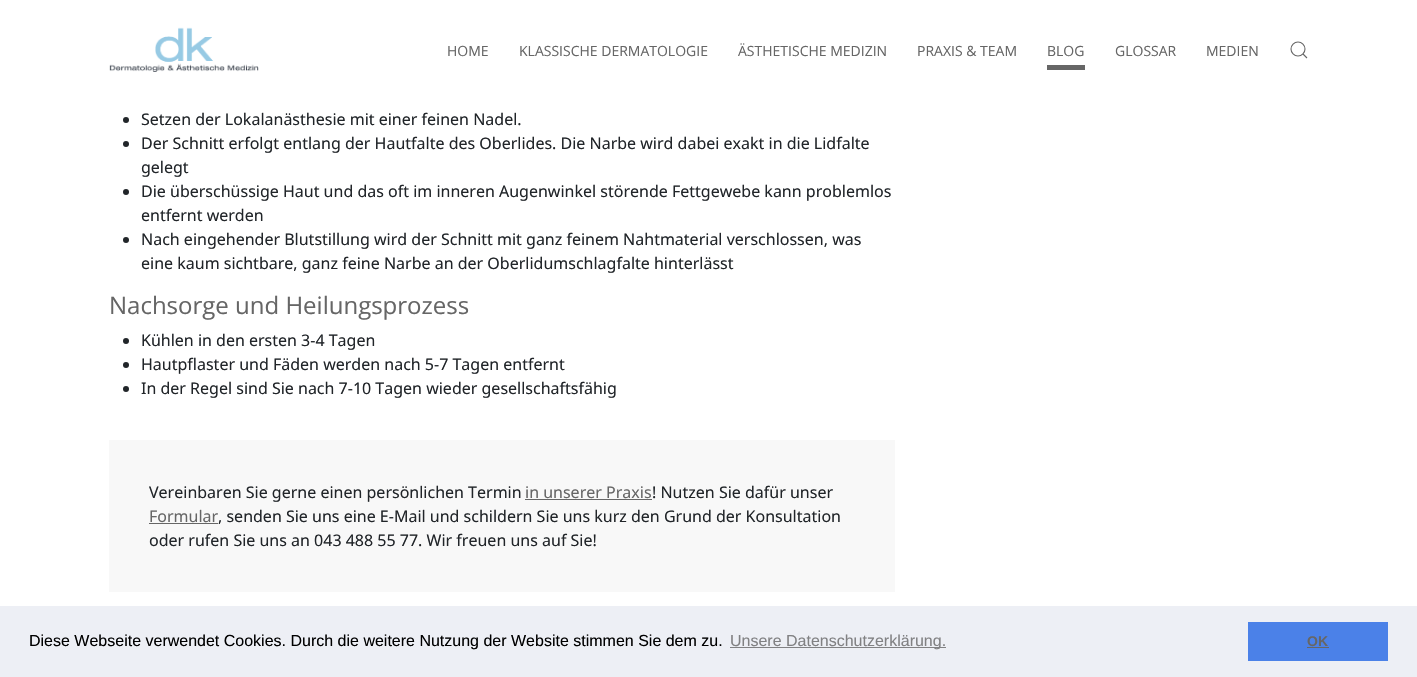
void draw(SkCanvas* c) {
SkPaint p;
p.setAntiAlias(true);
auto F=[&](const char* family, int weight, float size, bool italic = false){SkFontStyle style(weight, SkFontStyle::kNormal_Width,italic ? SkFontStyle::kItalic_Slant : SkFontStyle::kUpright_Slant);SkFont result(fontMgr->matchFamilyStyle(family, style), size);result.setSubpixel(true);return result;};
auto T=[&](const char* s, float x, float y, const SkFont& font){c->drawString(s, x, y, font, p);};
auto R=[&](float x, float y, float w, float h){c->drawRect(SkRect::MakeXYWH(x, y, w, h), p);};
auto I=[&](const char* path, float x, float y, float w, float h){auto image = SkImages::DeferredFromEncodedData(SkData::MakeFromFileName(path));c->drawImageRect(image, SkRect::MakeXYWH(x, y, w, h), SkSamplingOptions());};
auto P=[&](const char* data, bool evenOdd = false){SkPath result = *SkParsePath::FromSVGString(data);if (evenOdd) result.setFillType(SkPathFillType::kEvenOdd);return result;};
c->clear(0xffffffff);
I("1.png",109,27,150,45);
auto f1 = F("Open Sans",400,14);
p.setColor(0xff666666);
T("HOME",447,56,f1);
T("KLASSISCHE DERMATOLOGIE",519,56,f1);
T("ÄSTHETISCHE MEDIZIN",738,56,f1);
T("PRAXIS & TEAM",917,56,f1);
T("BLOG",1047,56,f1);
R(1047,65,38,5);
T("GLOSSAR",1115,56,f1);
T("MEDIEN",1206,56,f1);
p.setStroke(true);
p.setStrokeWidth(1.1);
c->drawCircle(1298,49,7,p);
c->drawPath(P("M1303 54l4 4z"),p);
p.setStroke(false);
p.setColor(0xff212529);
c->drawCircle(126,120,3,p);
auto f2 = F("Noto Sans",400,16);
T("Setzen der Lokalanästhesie mit einer feinen Nadel.",141,125,f2);
c->drawCircle(126,144,3,p);
T("Der Schnitt erfolgt entlang der Hautfalte des Oberlides. Die Narbe wird dabei exakt in die Lidfalte",141,149,f2);
T("gelegt",141,173,f2);
c->drawCircle(126,192,3,p);
T("Die überschüssige Haut und das oft im inneren Augenwinkel störende Fettgewebe kann problemlos",141,197,f2);
T("entfernt werden",141,221,f2);
c->drawCircle(126,240,3,p);
T("Nach eingehender Blutstillung wird der Schnitt mit ganz feinem Nahtmaterial verschlossen, was",141,245,f2);
T("eine kaum sichtbare, ganz feine Narbe an der Oberlidumschlagfalte hinterlässt",141,269,f2);
auto f3 = F("Open Sans",400,24);
p.setColor(0xff666666);
T("Nachsorge und Heilungsprozess",109,314,f3);
p.setColor(0xff212529);
c->drawCircle(126,341,3,p);
T("Kühlen in den ersten 3-4 Tagen",141,346,f2);
c->drawCircle(126,365,3,p);
T("Hautpflaster und Fäden werden nach 5-7 Tagen entfernt",141,370,f2);
c->drawCircle(126,389,3,p);
T("In der Regel sind Sie nach 7-10 Tagen wieder gesellschaftsfähig",141,394,f2);
p.setColor(0xfff8f8f8);
R(109,440,786,152);
p.setColor(0xff212529);
T("Vereinbaren Sie gerne einen persönlichen Termin",149,498,f2);
p.setColor(0xff666666);
T("in unserer Praxis",525,498,f2);
R(525,499,127,1);
p.setColor(0xff212529);
T("! Nutzen Sie dafür unser",652,498,f2);
p.setColor(0xff666666);
T("Formular",149,522,f2);
R(149,523,69,1);
p.setColor(0xff212529);
T(", senden Sie uns eine E-Mail und schildern Sie uns kurz den Grund der Konsultation",218,522,f2);
T("oder rufen Sie uns an 043 488 55 77. Wir freuen uns auf Sie!",149,546,f2);
p.setColor(0xffedeff5);
R(0,606,1417,71);
auto f4 = F("Liberation Sans",400,16);
p.setColor(0xff000000);
T("Diese Webseite verwendet Cookies. Durch die weitere Nutzung der Website stimmen Sie dem zu.",29,646,f4);
p.setColor(0xff818183);
R(730,647,216,1);
T("Unsere Datenschutzerklärung.",730,646,f4);
p.setColor(0xff4b81e8);
R(1248,622,140,39);
auto f5 = F("Liberation Sans",700,14);
p.setColor(0xff666666);
T("OK",1307,646,f5);
R(1307,647,22,1);
}
